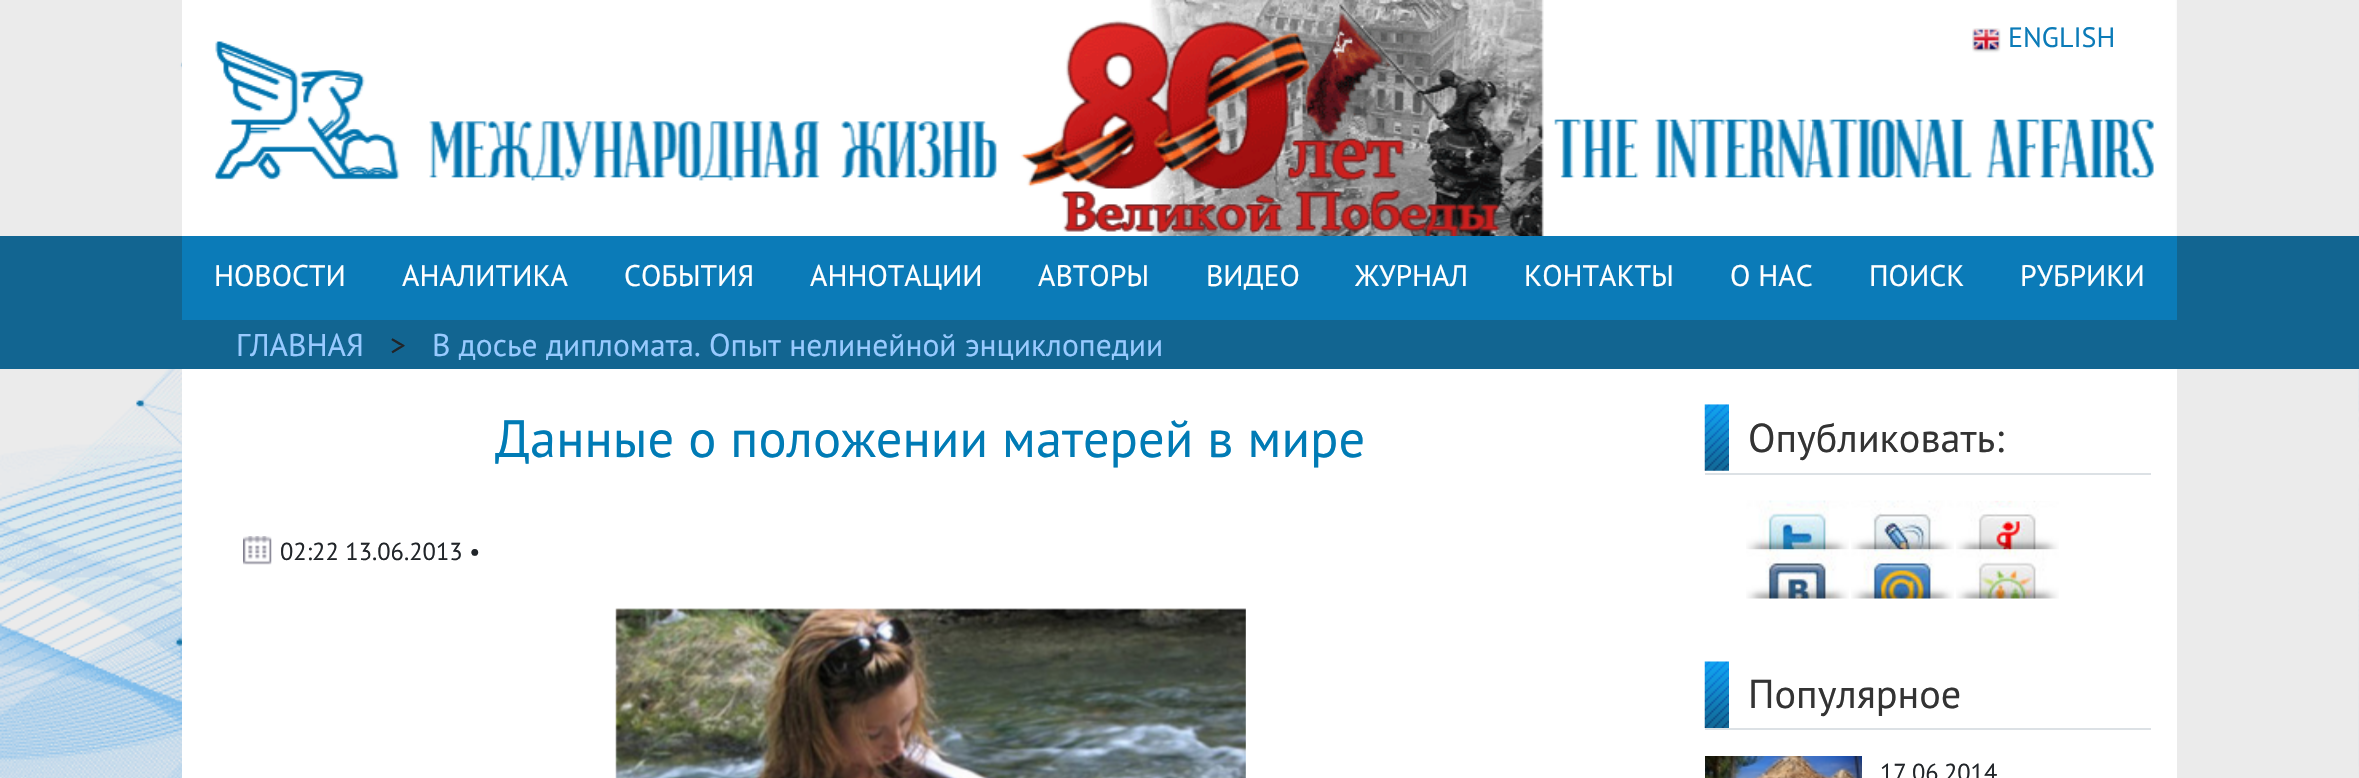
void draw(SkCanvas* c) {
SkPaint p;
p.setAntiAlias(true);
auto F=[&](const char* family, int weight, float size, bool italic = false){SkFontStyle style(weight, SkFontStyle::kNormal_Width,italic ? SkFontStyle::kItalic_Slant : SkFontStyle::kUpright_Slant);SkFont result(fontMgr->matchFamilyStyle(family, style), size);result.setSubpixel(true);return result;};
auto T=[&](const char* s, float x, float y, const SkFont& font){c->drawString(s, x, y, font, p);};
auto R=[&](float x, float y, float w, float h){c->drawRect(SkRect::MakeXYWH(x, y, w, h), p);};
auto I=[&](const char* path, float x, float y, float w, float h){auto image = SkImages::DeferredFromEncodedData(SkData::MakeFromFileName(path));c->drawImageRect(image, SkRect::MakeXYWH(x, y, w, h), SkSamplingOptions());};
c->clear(0xffffffff);
I("1.png",0,0,2359,778);
I("2.png",182,0,1995,236);
I("3.png",1972,28,29,25);
auto f1 = F("PT Sans",400,28);
p.setColor(0xff0b7bb8);
T("ENGLISH",2008,47,f1);
p.setColor(0xff126591);
R(0,236,2359,133);
p.setColor(0xff0b7bb8);
R(182,236,1995,84);
auto f2 = F("PT Sans",400,29.75);
p.setColor(0xffffffff);
T("НОВОСТИ",214,286,f2);
T("АНАЛИТИКА",402,286,f2);
T("СОБЫТИЯ",624,286,f2);
T("АННОТАЦИИ",810,286,f2);
T("АВТОРЫ",1038,286,f2);
T("ВИДЕО",1206,286,f2);
T("ЖУРНАЛ",1355,286,f2);
T("КОНТАКТЫ",1524,286,f2);
T("О НАС",1730,286,f2);
T("ПОИСК",1869,286,f2);
T("РУБРИКИ",2020,286,f2);
auto f3 = F("PT Sans",400,31.5);
p.setColor(0xff98caff);
T("ГЛАВНАЯ",236,356,f3);
p.setColor(0xff212529);
T(">",390,356,f3);
p.setColor(0xff98caff);
T("В досье дипломата. Опыт нелинейной энциклопедии",432,356,f3);
p.setColor(0xffffffff);
R(182,369,1995,409);
auto f4 = F("PT Sans",400,52.5);
p.setColor(0xff007bb5);
T("Данные о положении матерей в мире",495,457,f4);
I("4.png",243,536,29,29);
auto f5 = F("PT Sans",400,24.5);
p.setColor(0xff212529);
T("02:22 13.06.2013 •",280,560,f5);
I("5.png",615,608,631,170);
p.setColor(0xffdce1e5);
R(1705,473,446,2);
I("6.png",1704,404,25,67);
auto f6 = F("PT Sans",400,40.25);
p.setColor(0xff333333);
T("Опубликовать:",1748,452,f6);
I("7.png",1746,500,103,50);
I("8.png",1851,500,103,50);
I("9.png",1956,500,103,50);
I("10.png",1746,549,103,50);
I("11.png",1851,549,103,50);
I("12.png",1956,549,103,50);
p.setColor(0xffdce1e5);
R(1705,728,446,2);
I("13.png",1704,661,25,67);
p.setColor(0xff333333);
T("Популярное",1748,708,f6);
I("14.png",1705,756,157,22);
p.setColor(0xff212529);
T("17.06.2014",1880,781,f5);
}
